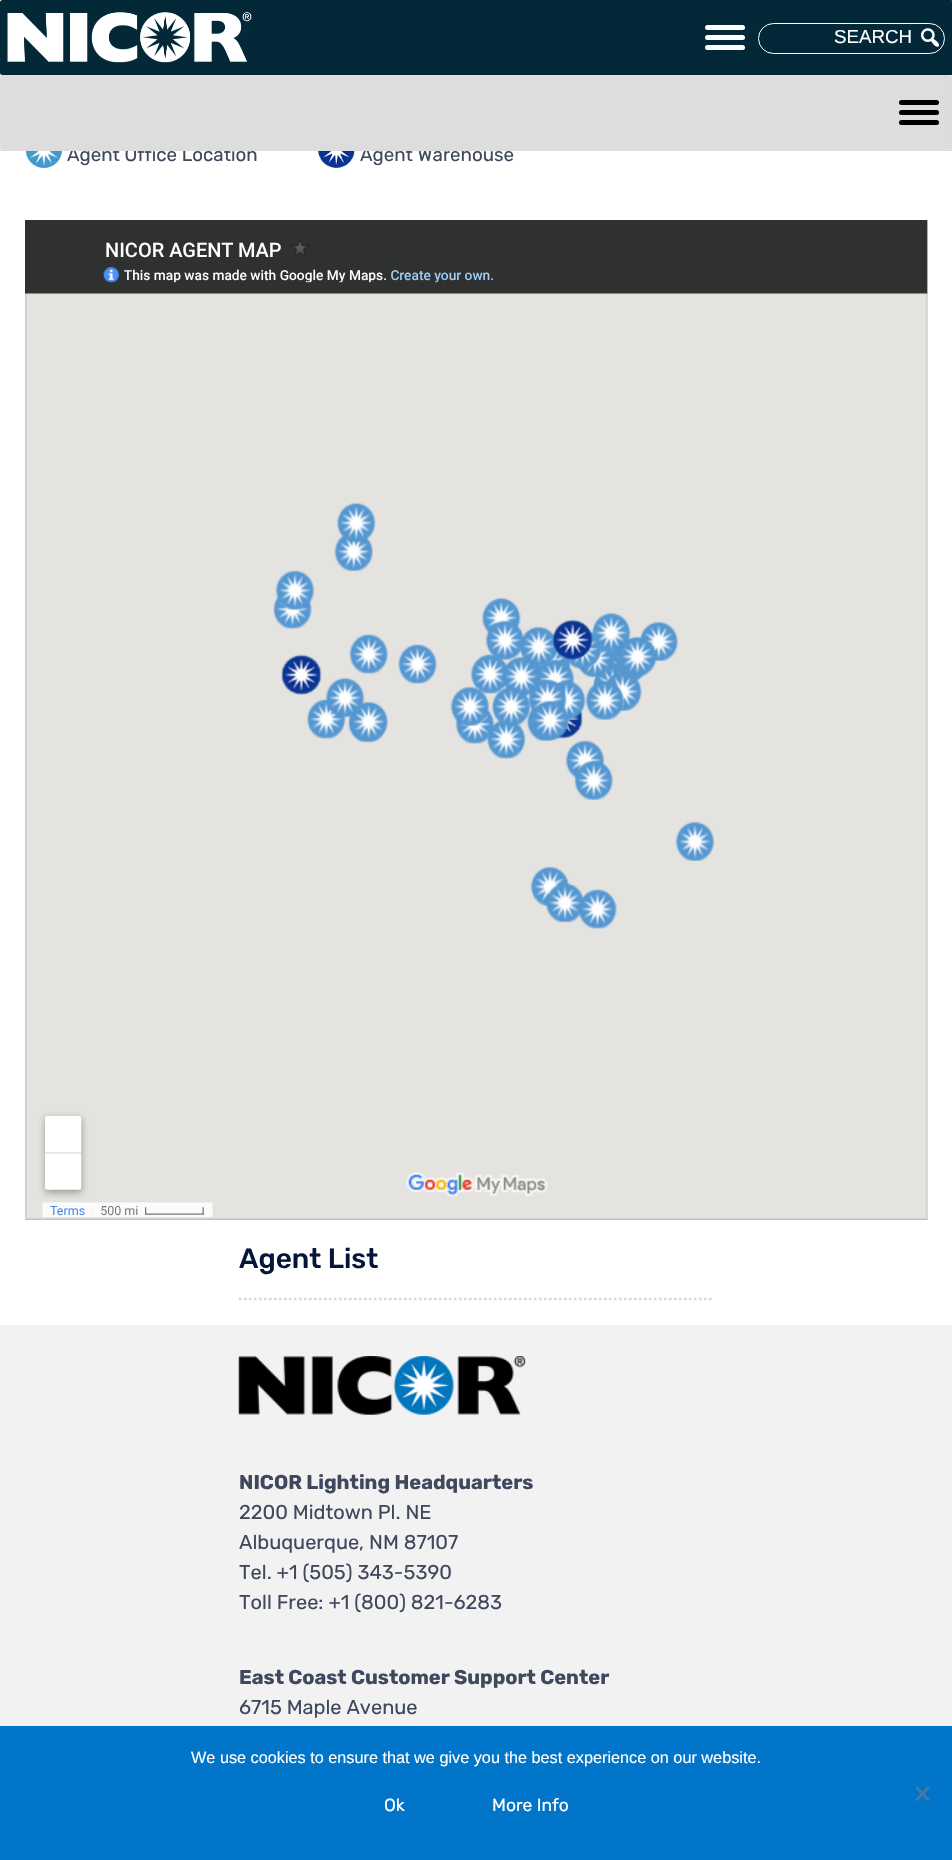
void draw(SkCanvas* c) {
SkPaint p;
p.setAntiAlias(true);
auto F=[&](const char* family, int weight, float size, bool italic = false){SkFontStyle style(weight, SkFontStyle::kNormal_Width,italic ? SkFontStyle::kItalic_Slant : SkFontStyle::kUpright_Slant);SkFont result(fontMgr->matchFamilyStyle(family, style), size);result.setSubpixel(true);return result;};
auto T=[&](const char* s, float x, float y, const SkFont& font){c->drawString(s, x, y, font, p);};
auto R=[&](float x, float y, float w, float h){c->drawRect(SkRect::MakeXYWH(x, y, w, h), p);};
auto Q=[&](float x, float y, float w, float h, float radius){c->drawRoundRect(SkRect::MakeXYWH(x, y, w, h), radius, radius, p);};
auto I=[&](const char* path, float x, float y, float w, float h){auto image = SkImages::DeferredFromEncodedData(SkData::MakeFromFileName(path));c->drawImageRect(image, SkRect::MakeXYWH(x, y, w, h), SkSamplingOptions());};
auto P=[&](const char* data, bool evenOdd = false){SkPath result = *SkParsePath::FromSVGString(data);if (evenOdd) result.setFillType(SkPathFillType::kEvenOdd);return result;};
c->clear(0xffffffff);
auto f1 = F("Rubik",400,18.75);
p.setColor(0xff3f485d);
T("Agent Office Location",67,161,f1);
T("Agent Warehouse",360,161,f1);
p.setColor(0xffffffff);
R(71,147,393,3);
p.setColor(0xffdbdbdb);
R(0,150,952,1);
p.setColor(0xff032838);
Q(0,0,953,75,2.5);
I("1.png",7,12,245,51);
p.setColor(0xffffffff);
Q(705,25,40,5,2.5);
Q(705,35,40,5,2.5);
Q(705,45,40,5,2.5);
p.setStroke(true);
p.setStrokeWidth(1);
c->drawRoundRect(SkRect::MakeXYWH(758.5,23.5,186,30),15,15,p);
auto f2 = F("Liberation Sans",400,18.75);
p.setStroke(false);
T("SEARCH",834,43,f2);
I("2.png",921,28,18,19);
p.setColor(0xffdbdbdb);
R(951,75,1,75);
p.setColor(0xffdddddd);
Q(0,75,951,75,2.5);
p.setColor(0xff000000);
Q(899,100,40,5,2.5);
Q(899,110,40,5,2.5);
Q(899,120,40,5,2.5);
I("3.png",25,151,38,18);
I("4.png",318,151,37,17);
I("5.png",25,220,903,1000);
auto f3 = F("Rubik",500,28);
p.setColor(0xff06163a);
T("Agent List",239,1268,f3);
p.setStroke(true);
p.setStrokeWidth(2.5);
p.setColor(0xffd8d8d8);
p.setPathEffect(SkDashPathEffect::Make({{2.5f,2.5f}}, 0));
c->drawPath(P("M239 1299h475"),p);
p.setPathEffect(nullptr);
p.setStroke(false);
p.setColor(0xfff2f2f2);
R(0,1325,952,401);
I("6.png",238,1356,288,59);
auto f4 = F("Rubik",700,20);
p.setColor(0xff3f485d);
T("NICOR Lighting Headquarters",239,1489,f4);
auto f5 = F("Rubik",400,20);
T("2200 Midtown Pl. NE",239,1519,f5);
T("Albuquerque, NM 87107",239,1549,f5);
T("Tel. +1 (505) 343-5390",239,1579,f5);
T("Toll Free: +1 (800) 821-6283",239,1609,f5);
T("East Coast Customer Support Center",239,1684,f4);
T("6715 Maple Avenue",239,1714,f5);
p.setColor(0xff0075c9);
R(0,1726,952,134);
auto f6 = F("Liberation Sans",400,16.25);
p.setColor(0xffffffff);
T("We use cookies to ensure that we give you the best experience on our website.",191,1763,f6);
p.setColor(0xff407ba5);
c->drawPath(P("M928 1786l2 2l-13 13.5l-2-2z"),p);
c->drawPath(P("M915 1788l2-2l13 13.5l-2 2z"),p);
auto f7 = F("Rubik",400,17.5);
p.setColor(0xffffffff);
T("Ok",384,1811,f7);
T("More Info",492,1811,f7);
}
